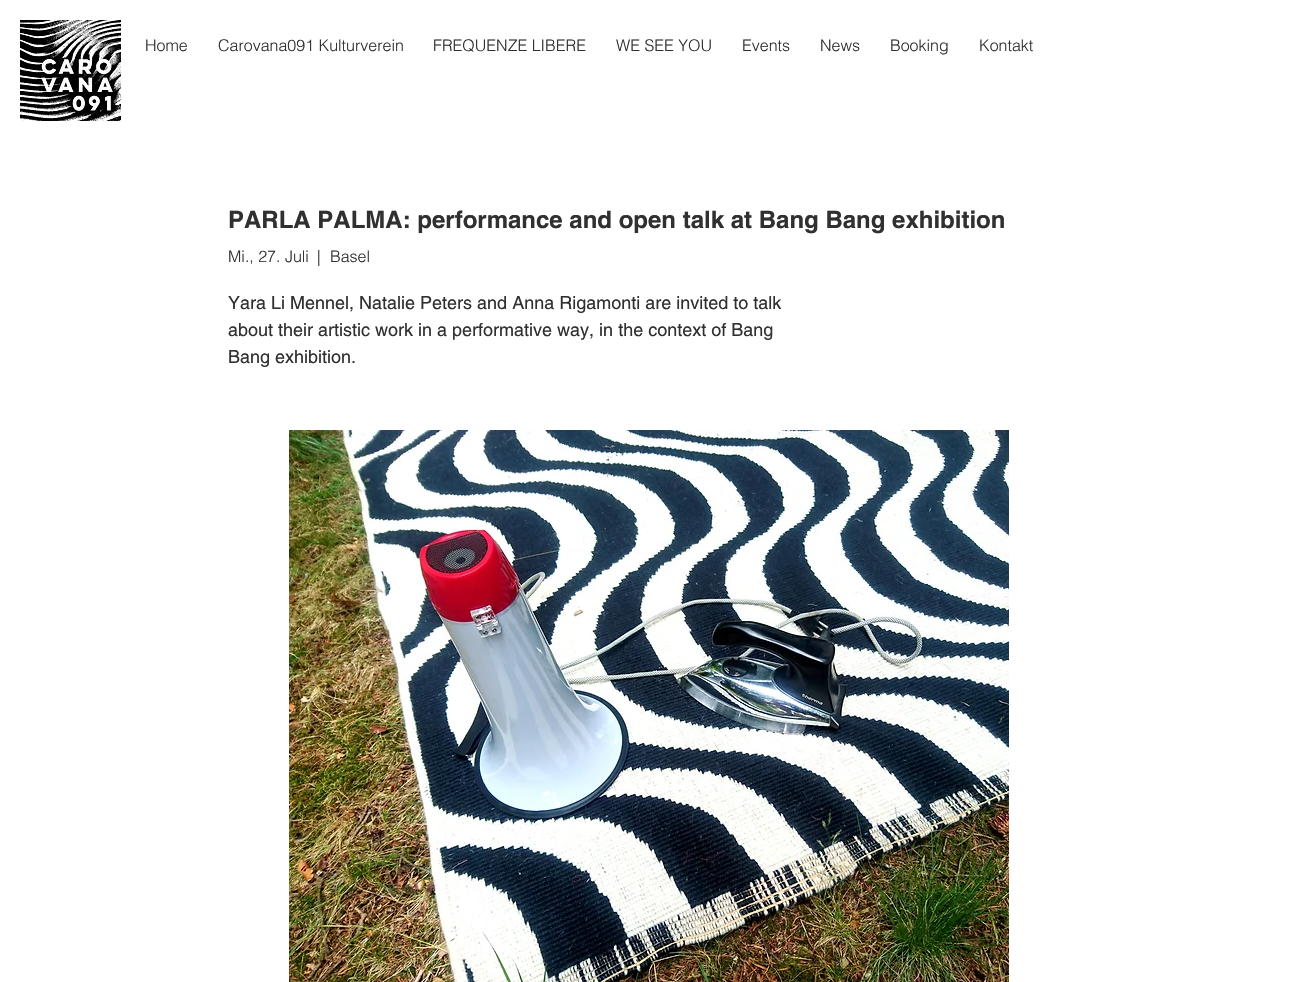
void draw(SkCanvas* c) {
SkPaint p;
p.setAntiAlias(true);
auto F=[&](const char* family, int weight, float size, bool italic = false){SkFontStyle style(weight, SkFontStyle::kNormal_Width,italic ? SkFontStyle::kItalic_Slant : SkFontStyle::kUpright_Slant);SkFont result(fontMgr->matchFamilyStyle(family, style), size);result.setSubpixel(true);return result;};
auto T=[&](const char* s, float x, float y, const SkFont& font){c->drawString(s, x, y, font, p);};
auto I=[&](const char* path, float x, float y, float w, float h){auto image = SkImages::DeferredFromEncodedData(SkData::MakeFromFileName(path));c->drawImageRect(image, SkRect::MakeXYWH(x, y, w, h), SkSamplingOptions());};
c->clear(0xffffffff);
I("1.png",20,20,101,101);
auto f1 = F("helvetica",300,16);
p.setColor(0xff303030);
T("Home",145,51,f1);
T("Carovana091 Kulturverein",218,51,f1);
T("FREQUENZE LIBERE",433,51,f1);
T("WE SEE YOU",616,51,f1);
T("Events",742,51,f1);
T("News",820,51,f1);
T("Booking",890,51,f1);
T("Kontakt",979,51,f1);
auto f2 = F("helvetica",700,24);
T("PARLA PALMA: performance and open talk at Bang Bang exhibition",228,228,f2);
T("Mi., 27. Juli",228,262,f1);
T("|",317,262,f1);
T("Basel",330,262,f1);
auto f3 = F("helvetica",400,18);
T("Yara Li Mennel, Natalie Peters and Anna Rigamonti are invited to talk",228,309,f3);
T("about their artistic work in a performative way, in the context of Bang",228,336,f3);
T("Bang exhibition.",228,363,f3);
I("2.png",289,430,720,552);
}
